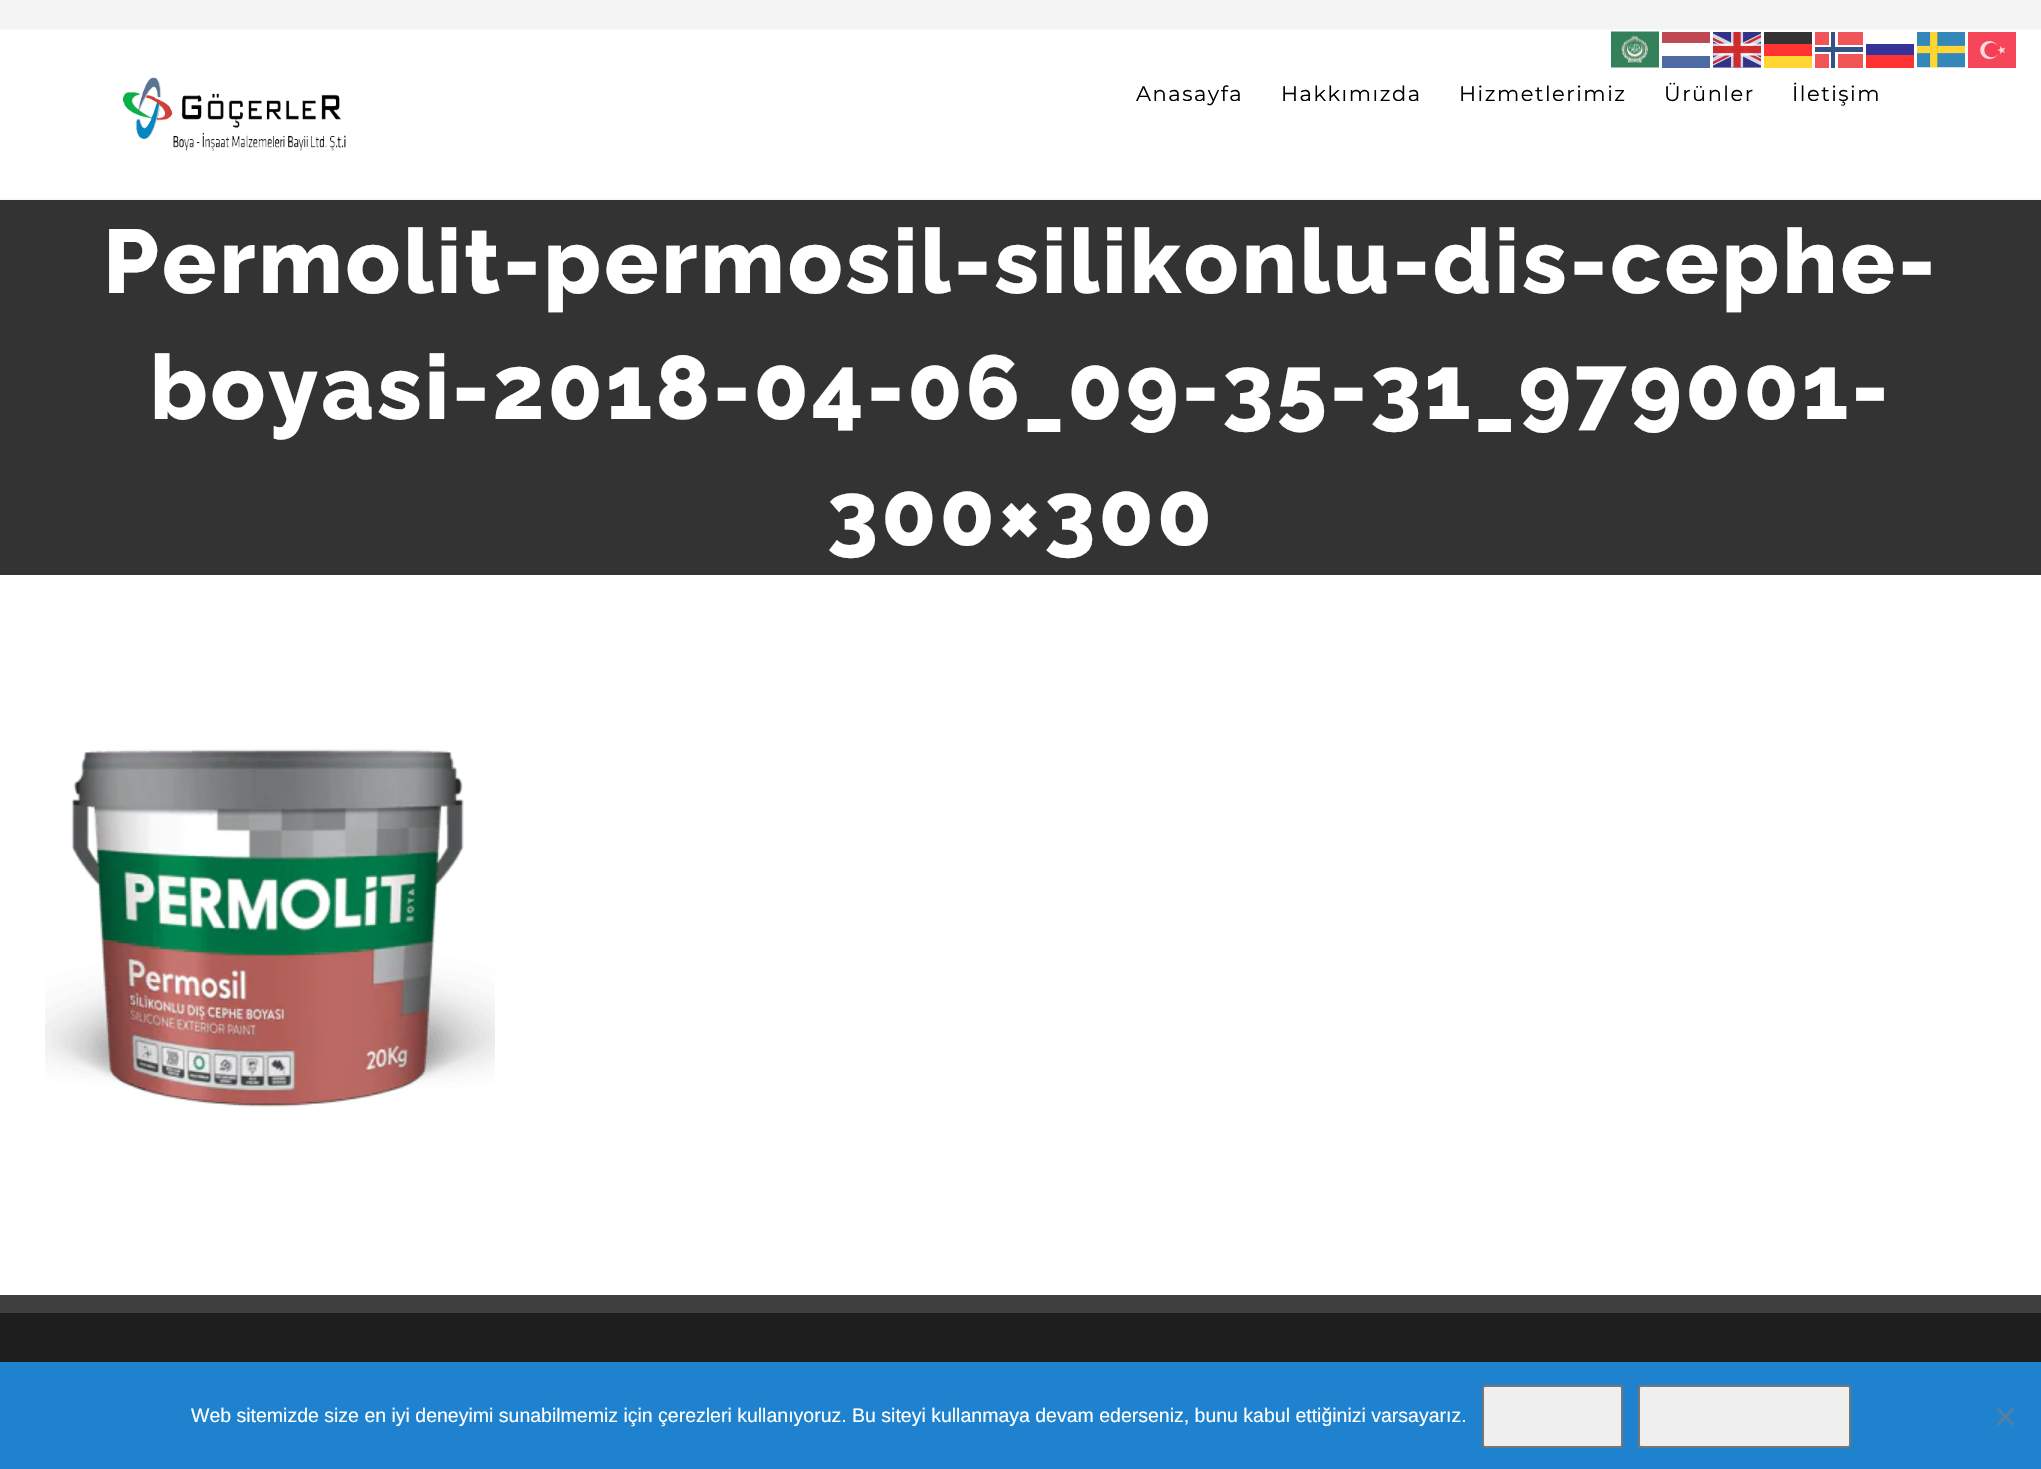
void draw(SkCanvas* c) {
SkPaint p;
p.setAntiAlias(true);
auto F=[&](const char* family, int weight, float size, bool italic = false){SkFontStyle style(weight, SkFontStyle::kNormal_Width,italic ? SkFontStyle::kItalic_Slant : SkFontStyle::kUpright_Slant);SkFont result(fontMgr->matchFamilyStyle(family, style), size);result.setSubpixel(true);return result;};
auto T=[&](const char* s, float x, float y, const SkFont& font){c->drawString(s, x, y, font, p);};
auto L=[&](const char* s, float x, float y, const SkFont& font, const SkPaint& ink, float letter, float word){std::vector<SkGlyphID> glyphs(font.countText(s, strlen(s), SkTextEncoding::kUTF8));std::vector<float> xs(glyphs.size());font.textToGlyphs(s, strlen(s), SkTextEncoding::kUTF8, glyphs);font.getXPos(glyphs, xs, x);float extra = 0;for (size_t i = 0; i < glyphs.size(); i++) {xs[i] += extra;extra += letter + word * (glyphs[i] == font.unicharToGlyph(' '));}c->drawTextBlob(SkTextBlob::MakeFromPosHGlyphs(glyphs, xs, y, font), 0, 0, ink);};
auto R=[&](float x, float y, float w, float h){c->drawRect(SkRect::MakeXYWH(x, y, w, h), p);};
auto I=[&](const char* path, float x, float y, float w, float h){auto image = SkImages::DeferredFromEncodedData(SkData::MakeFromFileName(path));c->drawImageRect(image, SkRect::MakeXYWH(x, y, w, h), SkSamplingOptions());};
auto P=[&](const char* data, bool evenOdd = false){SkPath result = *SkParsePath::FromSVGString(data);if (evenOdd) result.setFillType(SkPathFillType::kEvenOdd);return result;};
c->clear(0xffffffff);
p.setColor(0xfff4f4f4);
R(0,0,2041,29);
p.setColor(0xfff9f9f9);
R(0,29,2041,1);
R(0,198,2041,2);
I("1.png",123,77,223,74);
auto f1 = F("Montserrat",400,21);
p.setColor(0xff000000);
L("Anasayfa",1136,101,f1,p,1.5,0);
L("Hakkımızda",1281,101,f1,p,1.5,0);
L("Hizmetlerimiz",1459,101,f1,p,1.5,0);
L("Ürünler",1664,101,f1,p,1.5,0);
L("İletişim",1792,101,f1,p,1.5,0);
p.setColor(0xff333333);
R(0,200,2041,375);
auto f2 = F("Raleway",800,90);
p.setColor(0xffffffff);
L("Permolit-permosil-silikonlu-dis-cephe-",103,293,f2,p,3,0);
L("boyasi-2018-04-06_09-35-31_979001-",150,419,f2,p,3,0);
L("300×300",827,545,f2,p,3,0);
I("2.png",45,749,450,358);
p.setColor(0xff1e1e1e);
R(0,1313,2041,49);
p.setColor(0xff3f3f3f);
R(0,1295,2041,18);
I("3.png",1611,31,48,37);
p.setColor(0xffbe4953);
R(1662,32,48,11);
I("4.png",1713,32,48,36);
p.setColor(0xff333333);
R(1764,32,48,12);
p.setColor(0xfff25557);
R(1815,32,48,36);
p.setColor(0xffffffff);
R(1829,32,9,36);
p.setColor(0xffff3333);
R(1764,44,48,12);
p.setColor(0xffffffff);
R(1815,45,48,9);
p.setColor(0xff335386);
R(1831,32,4,36);
p.setColor(0xff343498);
R(1866,44,48,11);
I("5.png",1917,32,48,36);
I("6.png",1968,32,48,36);
p.setColor(0xff335386);
R(1815,47,48,5);
p.setColor(0xff4d6ba2);
R(1662,56,48,12);
p.setColor(0xffffd633);
R(1764,56,48,12);
p.setColor(0xfffe3434);
R(1866,55,48,13);
p.setColor(0xff1e82ce);
R(0,1362,2041,107);
auto f3 = F("Liberation Sans",400,19.5);
p.setColor(0xffffffff);
T("Web sitemizde size en iyi deneyimi sunabilmemiz için çerezleri kullanıyoruz. Bu siteyi kullanmaya devam ederseniz, bunu kabul ettiğinizi varsayarız.",191,1422,f3);
p.setColor(0xffefefef);
c->drawRoundRect(SkRect::MakeXYWH(1483,1386,139,61),2,2,p);
p.setStroke(true);
p.setStrokeWidth(2);
p.setColor(0xff767676);
c->drawRoundRect(SkRect::MakeXYWH(1483,1386,139,61),2,2,p);
p.setStroke(false);
p.setColor(0xffefefef);
c->drawRoundRect(SkRect::MakeXYWH(1639,1386,211,61),2,2,p);
p.setStroke(true);
p.setColor(0xff767676);
c->drawRoundRect(SkRect::MakeXYWH(1639,1386,211,61),2,2,p);
p.setStroke(false);
p.setColor(0xff4f81a7);
c->drawPath(P("M2012.5 1407.5l2 2.5l-16 16l-2-2.5z"),p);
c->drawPath(P("M1996.5 1410l2-2.5l16 16l-2 2.5z"),p);
}
